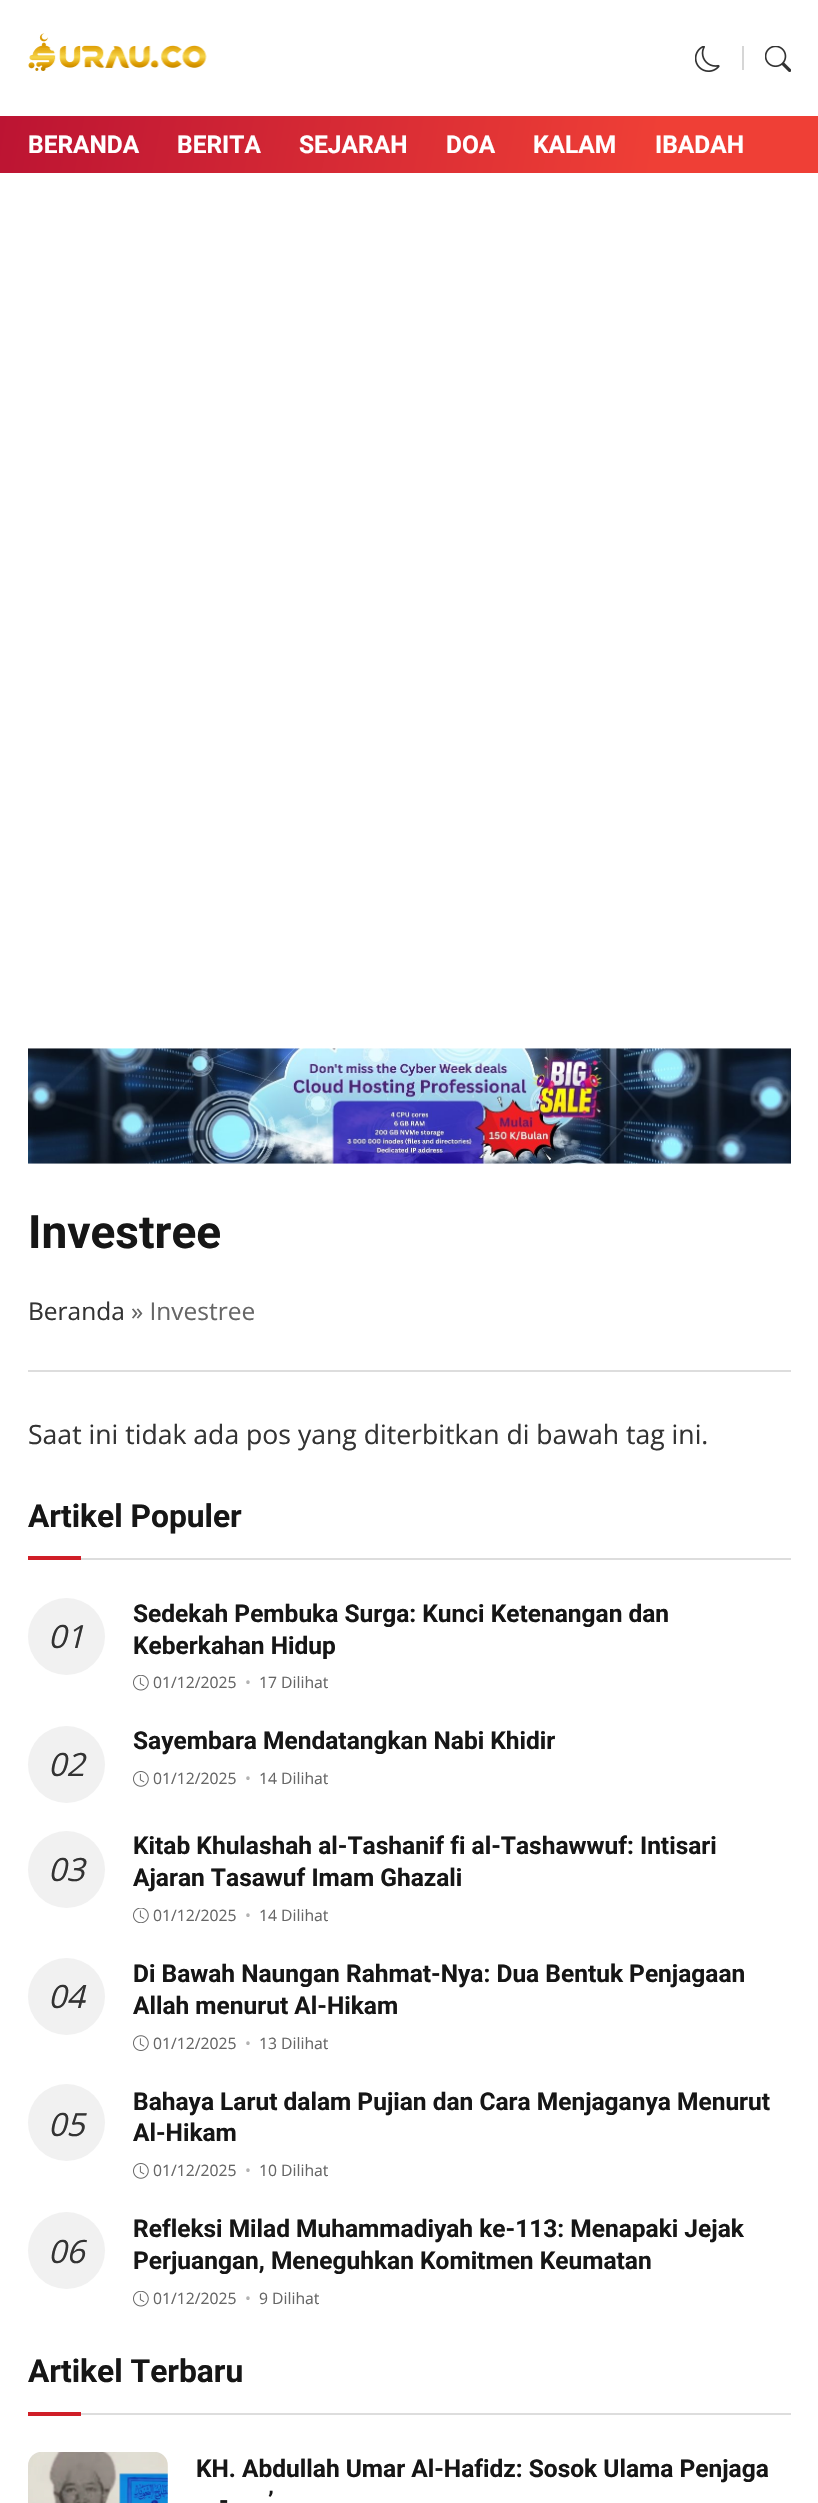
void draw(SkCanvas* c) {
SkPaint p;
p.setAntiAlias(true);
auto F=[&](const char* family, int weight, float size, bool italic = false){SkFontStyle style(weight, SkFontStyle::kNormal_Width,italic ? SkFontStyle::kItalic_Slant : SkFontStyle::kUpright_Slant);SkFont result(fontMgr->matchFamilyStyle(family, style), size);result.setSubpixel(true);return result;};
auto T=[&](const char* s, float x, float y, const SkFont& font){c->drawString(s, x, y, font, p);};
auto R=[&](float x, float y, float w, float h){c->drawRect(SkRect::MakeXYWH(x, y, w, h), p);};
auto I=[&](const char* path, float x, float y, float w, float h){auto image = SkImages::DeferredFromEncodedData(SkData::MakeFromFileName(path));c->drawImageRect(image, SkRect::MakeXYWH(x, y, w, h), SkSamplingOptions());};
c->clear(0xffffffff);
I("1.png",28,33,179,38);
I("2.png",695,46,25,26);
p.setColor(0xffd6d6d6);
R(742,46,2,24);
I("3.png",765,46,26,26);
{
const SkColor colors[] = {0xffbc1433,0xffef3f36};
const float stops[] = {0,.8};
const SkPoint ends[] = {{7.4,73}, {812,215}};
p.setShader(SkGradientShader::MakeLinear(ends, colors, stops, 2, SkTileMode::kClamp));
p.setAlpha(255);
}
R(0,116,818,57);
auto f1 = F("Roboto",700,24.5);
p.setShader(nullptr);
p.setColor(0xffffffff);
T("BERANDA",28,153,f1);
T("BERITA",177,153,f1);
T("SEJARAH",299,153,f1);
T("DOA",446,153,f1);
T("KALAM",533,153,f1);
T("IBADAH",655,153,f1);
I("4.png",28,1048,763,116);
auto f2 = F("Roboto",700,46);
p.setColor(0xff161616);
T("Investree",28,1248,f2);
auto f3 = F("Open Sans",400,24.5);
p.setColor(0xff333333);
T("Beranda",28,1320,f3);
p.setColor(0xff666666);
T("» Investree",131,1320,f3);
p.setColor(0xffdddddd);
R(28,1370,763,2);
auto f4 = F("Open Sans",400,26.6);
p.setColor(0xff333333);
T("Saat ini tidak ada pos yang diterbitkan di bawah tag ini.",28,1444,f4);
p.setColor(0xffdddddd);
R(81,1558,710,2);
auto f5 = F("Roboto",700,31.75);
p.setColor(0xff161616);
T("Artikel Populer",28,1527,f5);
p.setColor(0xffd01e27);
R(28,1556,53,4);
p.setColor(0xfff1f1f1);
c->drawCircle(66.5,1636.5,38.5,p);
auto f6 = F("Open Sans",400,32,true);
p.setColor(0xff333333);
T("01",48,1648,f6);
p.setColor(0xff161616);
T("Sedekah Pembuka Surga: Kunci Ketenangan dan",133,1622,f1);
T("Keberkahan Hidup",133,1654,f1);
I("5.png",133,1675,16,16);
auto f7 = F("Open Sans",400,15.75);
p.setColor(0xff666666);
T("01/12/2025",153,1688,f7);
p.setColor(0xffb3b3b3);
T("•",245,1688,f7);
p.setColor(0xff666666);
T("17 Dilihat",259,1688,f7);
p.setColor(0xfff1f1f1);
c->drawCircle(66.5,1764.5,38.5,p);
p.setColor(0xff333333);
T("02",48,1776,f6);
p.setColor(0xff161616);
T("Sayembara Mendatangkan Nabi Khidir",133,1749,f1);
I("6.png",133,1771,16,16);
p.setColor(0xff666666);
T("01/12/2025",153,1784,f7);
p.setColor(0xffb3b3b3);
T("•",245,1784,f7);
p.setColor(0xff666666);
T("14 Dilihat",259,1784,f7);
p.setColor(0xfff1f1f1);
c->drawCircle(66.5,1869.5,38.5,p);
p.setColor(0xff333333);
T("03",48,1881,f6);
p.setColor(0xff161616);
T("Kitab Khulashah al-Tashanif fi al-Tashawwuf: Intisari",133,1854,f1);
T("Ajaran Tasawuf Imam Ghazali",133,1886,f1);
I("7.png",133,1908,16,15);
p.setColor(0xff666666);
T("01/12/2025",153,1921,f7);
p.setColor(0xffb3b3b3);
T("•",245,1921,f7);
p.setColor(0xff666666);
T("14 Dilihat",259,1921,f7);
p.setColor(0xfff1f1f1);
c->drawCircle(66.5,1996.5,38.5,p);
p.setColor(0xff333333);
T("04",48,2008,f6);
p.setColor(0xff161616);
T("Di Bawah Naungan Rahmat-Nya: Dua Bentuk Penjagaan",133,1982,f1);
T("Allah menurut Al-Hikam",133,2014,f1);
I("8.png",133,2035,16,16);
p.setColor(0xff666666);
T("01/12/2025",153,2049,f7);
p.setColor(0xffb3b3b3);
T("•",245,2049,f7);
p.setColor(0xff666666);
T("13 Dilihat",259,2049,f7);
p.setColor(0xfff1f1f1);
c->drawCircle(66.5,2122.5,38.5,p);
p.setColor(0xff333333);
T("05",48,2136,f6);
p.setColor(0xff161616);
T("Bahaya Larut dalam Pujian dan Cara Menjaganya Menurut",133,2110,f1);
T("Al-Hikam",133,2141,f1);
I("6.png",133,2163,16,16);
p.setColor(0xff666666);
T("01/12/2025",153,2176,f7);
p.setColor(0xffb3b3b3);
T("•",245,2176,f7);
p.setColor(0xff666666);
T("10 Dilihat",259,2176,f7);
p.setColor(0xfff1f1f1);
c->drawCircle(66.5,2250.5,38.5,p);
p.setColor(0xff333333);
T("06",48,2263,f6);
p.setColor(0xff161616);
T("Refleksi Milad Muhammadiyah ke-113: Menapaki Jejak",133,2237,f1);
T("Perjuangan, Meneguhkan Komitmen Keumatan",133,2269,f1);
I("5.png",133,2291,16,16);
p.setColor(0xff666666);
T("01/12/2025",153,2304,f7);
p.setColor(0xffb3b3b3);
T("•",245,2304,f7);
p.setColor(0xff666666);
T("9 Dilihat",259,2304,f7);
p.setColor(0xffdddddd);
R(81,2413,710,2);
p.setColor(0xff161616);
T("Artikel Terbaru",28,2382,f5);
p.setColor(0xffd01e27);
R(28,2412,53,4);
I("9.png",28,2452,140,51);
p.setColor(0xff161616);
T("KH. Abdullah Umar Al-Hafidz: Sosok Ulama Penjaga",196,2477,f1);
T("’",268,2509,f1);
T("-",219,2509,f1);
}
